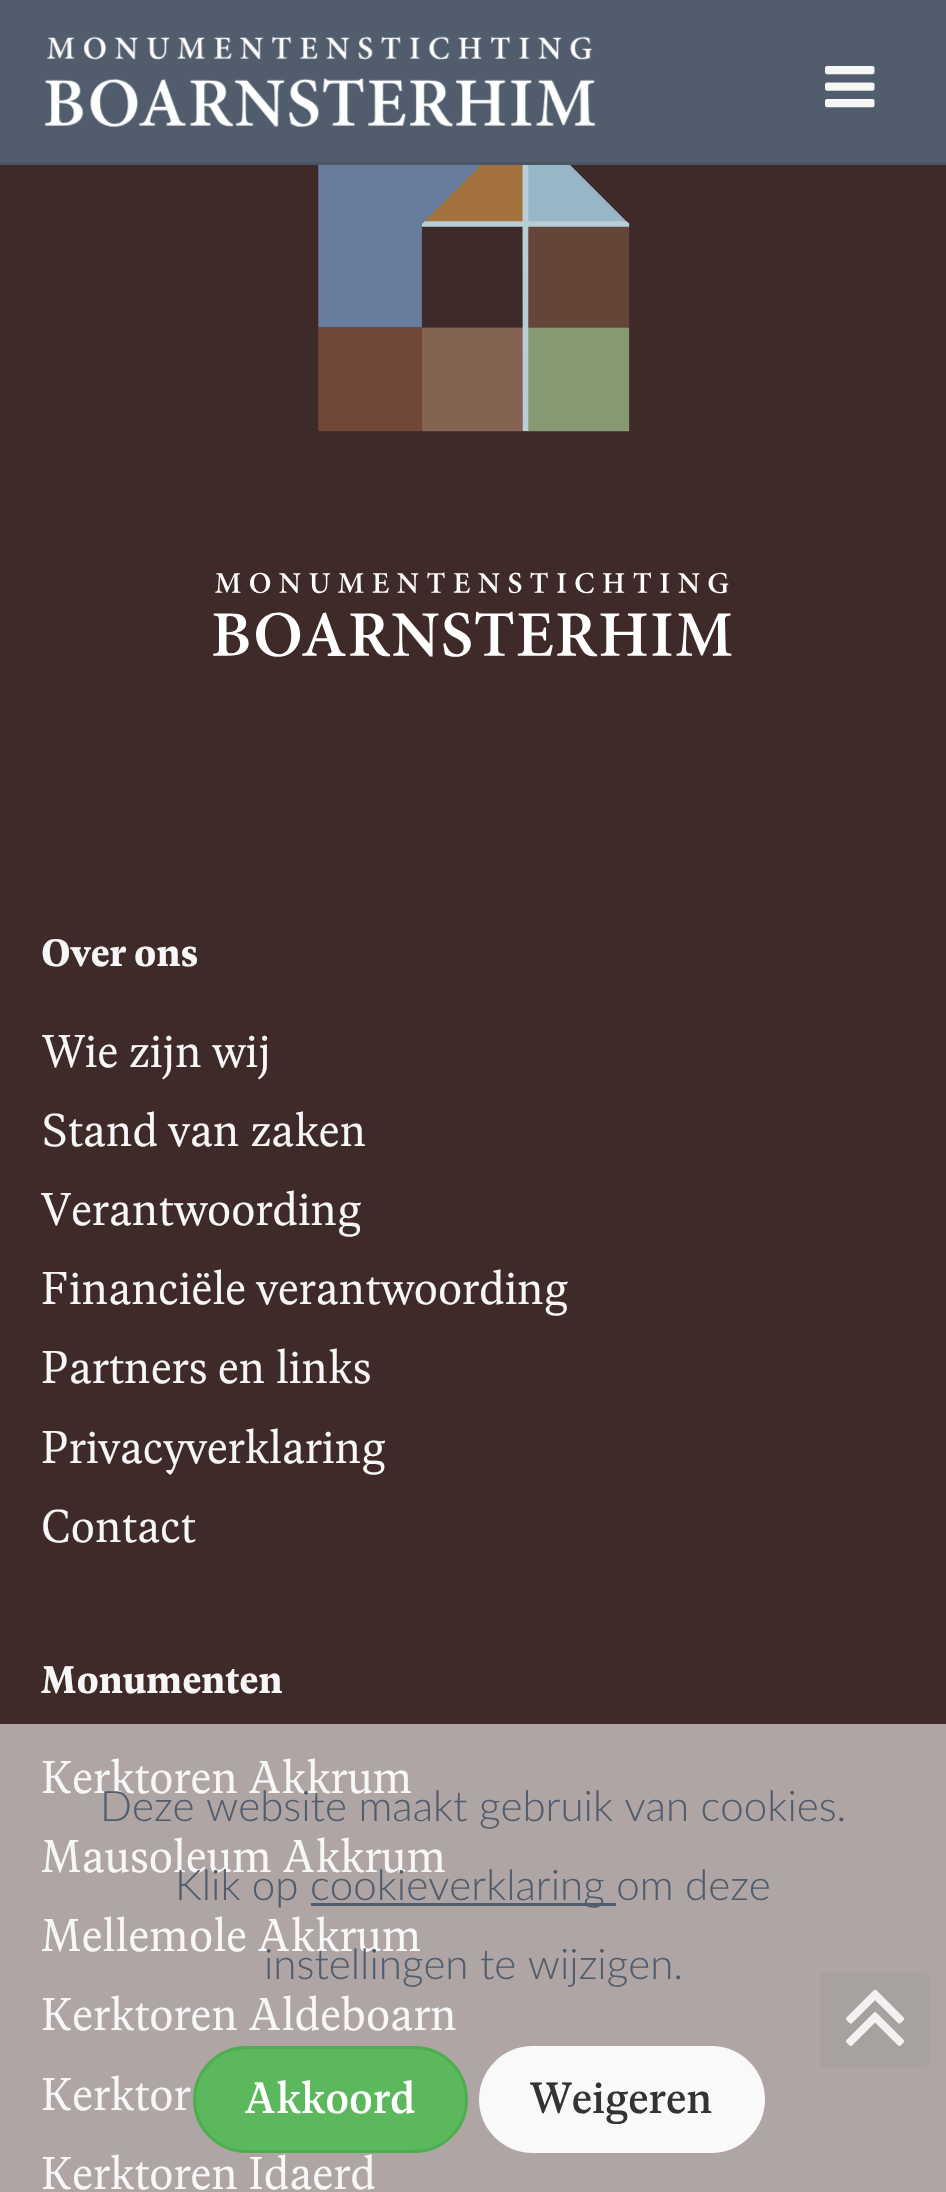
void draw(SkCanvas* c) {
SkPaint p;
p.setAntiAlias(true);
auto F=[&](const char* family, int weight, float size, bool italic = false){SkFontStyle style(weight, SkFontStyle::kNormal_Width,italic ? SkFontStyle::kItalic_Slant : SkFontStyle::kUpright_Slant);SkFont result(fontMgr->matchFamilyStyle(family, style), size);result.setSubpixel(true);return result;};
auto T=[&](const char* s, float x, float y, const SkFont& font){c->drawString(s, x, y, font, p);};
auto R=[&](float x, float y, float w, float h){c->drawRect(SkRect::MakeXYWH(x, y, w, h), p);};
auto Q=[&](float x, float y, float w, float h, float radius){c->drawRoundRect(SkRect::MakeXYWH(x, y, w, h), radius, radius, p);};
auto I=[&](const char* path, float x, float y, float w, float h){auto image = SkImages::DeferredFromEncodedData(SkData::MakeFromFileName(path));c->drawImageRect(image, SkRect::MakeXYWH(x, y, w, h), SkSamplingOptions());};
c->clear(0xff3e2a28);
p.setColor(0xff515d6d);
R(0,0,946,162);
p.setColor(0xff4b5664);
R(0,162,946,3);
I("1.png",45,36,551,91);
I("2.png",825,66,50,42);
p.setColor(0xffaea5a4);
R(0,1724,946,468);
I("3.png",213,165,519,492);
auto f1 = F("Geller",600,41.25);
p.setColor(0xfff8f7f7);
T("Over ons",41,966,f1);
auto f2 = F("Geller",300,49.5);
T("Wie zijn wij",41,1067,f2);
T("Stand van zaken",41,1146,f2);
T("Verantwoording",41,1225,f2);
T("Financiële verantwoording",41,1304,f2);
T("Partners en links",41,1383,f2);
T("Privacyverklaring",41,1463,f2);
T("Contact",41,1542,f2);
T("Monumenten",41,1693,f1);
T("Kerktoren Akkrum",41,1793,f2);
T("Mausoleum Akkrum",41,1872,f2);
T("Mellemole Akkrum",41,1951,f2);
T("Kerktoren Aldeboarn",41,2030,f2);
T("Kerktor",41,2110,f2);
T("Kerktoren Idaerd",41,2189,f2);
auto f3 = F("Lato",300,42.1);
p.setColor(0xff515d6d);
T("Deze website maakt gebruik van cookies.",100,1821,f3);
T("Klik op",175,1900,f3);
R(311,1903,305,3);
T("cookieverklaring om deze",310,1900,f3);
T("instellingen te wijzigen.",264,1979,f3);
p.setColor(0xff5cb85c);
c->drawRoundRect(SkRect::MakeXYWH(194.5,2047.5,272,104),52,52,p);
p.setStroke(true);
p.setStrokeWidth(3);
p.setColor(0xff4cae4c);
c->drawRoundRect(SkRect::MakeXYWH(194.5,2047.5,272,104),52,52,p);
auto f4 = F("Geller",400,47);
p.setStroke(false);
p.setColor(0xffffffff);
T("Akkoord",244,2113,f4);
p.setColor(0xfff9f9f9);
Q(479,2046,286,107,53.5);
p.setColor(0xff333333);
T("Weigeren",529,2113,f4);
p.setColor(0xffa7a1a0);
Q(820,1972,110,96,6);
I("4.png",846,1989,59,57);
}
